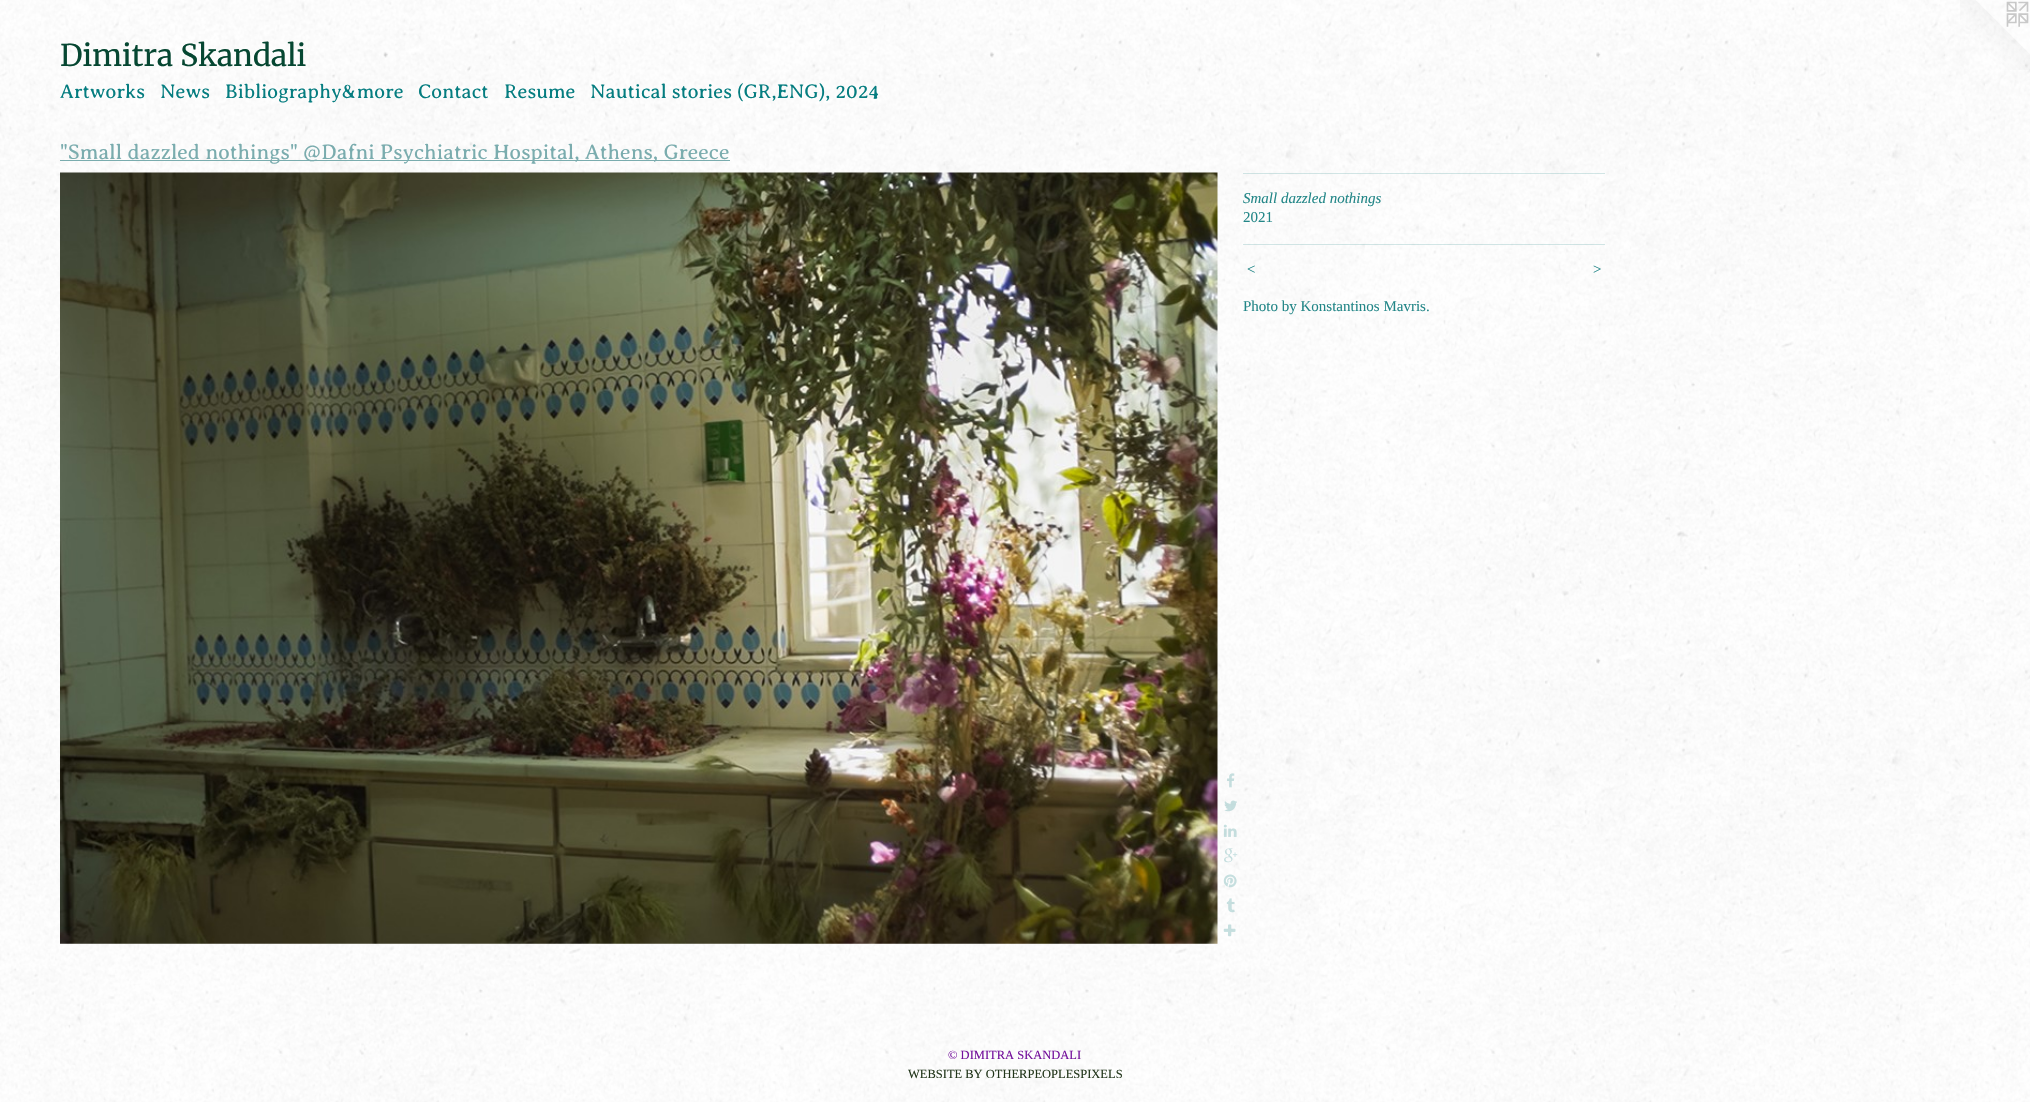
void draw(SkCanvas* c) {
SkPaint p;
p.setAntiAlias(true);
auto F=[&](const char* family, int weight, float size, bool italic = false){SkFontStyle style(weight, SkFontStyle::kNormal_Width,italic ? SkFontStyle::kItalic_Slant : SkFontStyle::kUpright_Slant);SkFont result(fontMgr->matchFamilyStyle(family, style), size);result.setSubpixel(true);return result;};
auto T=[&](const char* s, float x, float y, const SkFont& font){c->drawString(s, x, y, font, p);};
auto L=[&](const char* s, float x, float y, const SkFont& font, const SkPaint& ink, float letter, float word){std::vector<SkGlyphID> glyphs(font.countText(s, strlen(s), SkTextEncoding::kUTF8));std::vector<float> xs(glyphs.size());font.textToGlyphs(s, strlen(s), SkTextEncoding::kUTF8, glyphs);font.getXPos(glyphs, xs, x);float extra = 0;for (size_t i = 0; i < glyphs.size(); i++) {xs[i] += extra;extra += letter + word * (glyphs[i] == font.unicharToGlyph(' '));}c->drawTextBlob(SkTextBlob::MakeFromPosHGlyphs(glyphs, xs, y, font), 0, 0, ink);};
auto R=[&](float x, float y, float w, float h){c->drawRect(SkRect::MakeXYWH(x, y, w, h), p);};
auto I=[&](const char* path, float x, float y, float w, float h){auto image = SkImages::DeferredFromEncodedData(SkData::MakeFromFileName(path));c->drawImageRect(image, SkRect::MakeXYWH(x, y, w, h), SkSamplingOptions());};
c->clear(0xffffffff);
I("1.png",0,0,2030,1102);
auto f1 = F("Merriweather",300,30);
p.setColor(0xff064732);
T("Dimitra Skandali",60,66,f1);
I("2.png",1960,0,70,70);
auto f2 = F("Averia Serif Libre",300,20);
p.setColor(0xff057d80);
T("Artworks",60,98,f2);
T("News",160,98,f2);
T("Bibliography&more",225,98,f2);
T("Contact",418,98,f2);
T("Resume",504,98,f2);
T("Nautical stories (GR,ENG), 2024",590,98,f2);
p.setColor(0xff7aacae);
R(60,160,670,1);
auto f3 = F("Averia Serif Libre",300,21.25);
T("\"Small dazzled nothings\" @Dafni Psychiatric Hospital, Athens, Greece",60,159,f3);
I("3.png",60,172,1158,772);
I("4.png",1227,773,8,15);
I("5.png",1224,800,13,12);
I("6.png",1223,824,14,13);
I("7.png",1224,848,14,15);
I("8.png",1223,874,14,14);
I("9.png",1226,898,9,15);
I("10.png",1223,924,13,13);
p.setColor(0x33228687);
R(1243,173,362,1);
auto f4 = F("Liberation Serif",400,15,true);
p.setColor(0xff228687);
T("Small dazzled nothings",1243,203,f4);
auto f5 = F("Liberation Serif",400,15);
T("2021",1243,222,f5);
p.setColor(0x33228687);
R(1243,244,362,1);
p.setColor(0xff228687);
L("<",1246,274,f4,p,1,0);
L(">",1592,274,f4,p,1,0);
T("Photo by Konstantinos Mavris.",1243,311,f5);
auto f6 = F("Liberation Serif",400,12.5);
p.setColor(0xff74119c);
T("© DIMITRA SKANDALI",948,1059,f6);
p.setColor(0xff22361b);
T("WEBSITE BY OTHERPEOPLESPIXELS",908,1078,f6);
}
